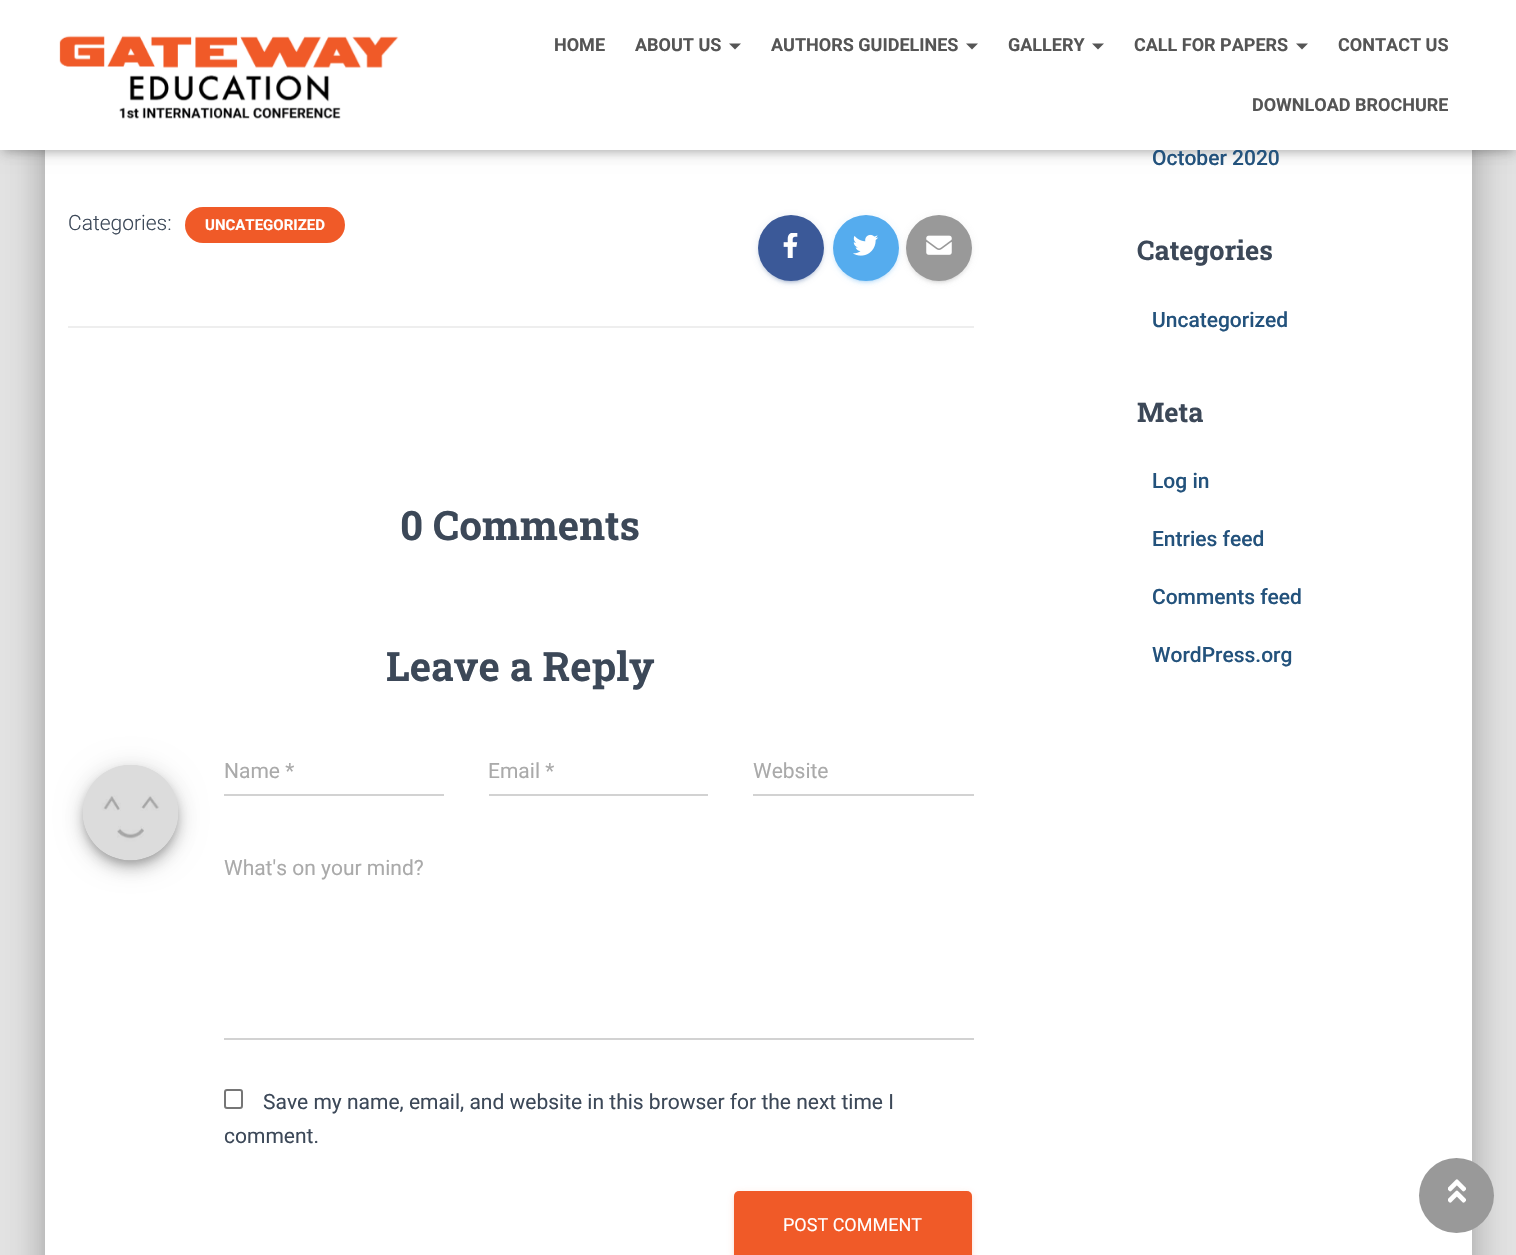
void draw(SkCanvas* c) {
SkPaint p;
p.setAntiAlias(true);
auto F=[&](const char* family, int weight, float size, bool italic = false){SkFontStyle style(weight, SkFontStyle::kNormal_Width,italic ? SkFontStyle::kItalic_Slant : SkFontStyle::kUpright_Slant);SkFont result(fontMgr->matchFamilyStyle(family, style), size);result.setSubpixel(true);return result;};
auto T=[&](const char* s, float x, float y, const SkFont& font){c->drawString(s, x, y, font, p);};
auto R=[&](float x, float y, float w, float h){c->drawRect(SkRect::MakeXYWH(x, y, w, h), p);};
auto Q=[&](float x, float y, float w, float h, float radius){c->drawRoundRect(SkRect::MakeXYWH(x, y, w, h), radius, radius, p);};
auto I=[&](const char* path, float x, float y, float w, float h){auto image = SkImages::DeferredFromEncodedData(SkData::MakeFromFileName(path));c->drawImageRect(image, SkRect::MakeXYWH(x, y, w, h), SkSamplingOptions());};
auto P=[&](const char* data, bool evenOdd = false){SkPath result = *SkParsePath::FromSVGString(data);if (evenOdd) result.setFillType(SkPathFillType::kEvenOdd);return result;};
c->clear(0xffe5e5e5);
p.setColor(0x33000000);
p.setMaskFilter(SkMaskFilter::MakeBlur(kNormal_SkBlurStyle, 7.5));
c->drawRoundRect(SkRect::MakeXYWH(53,-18,1411,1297),1.5,1.5,p);
p.setMaskFilter(nullptr);
p.setColor(0x1f000000);
p.setMaskFilter(SkMaskFilter::MakeBlur(kNormal_SkBlurStyle, 22.5));
c->drawRoundRect(SkRect::MakeXYWH(38,-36,1441,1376),17,17,p);
p.setMaskFilter(nullptr);
p.setColor(0x24000000);
p.setMaskFilter(SkMaskFilter::MakeBlur(kNormal_SkBlurStyle, 18));
c->drawRoundRect(SkRect::MakeXYWH(42,-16,1433,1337),12,12,p);
p.setMaskFilter(nullptr);
p.setColor(0xffffffff);
R(45,150,1427,1105);
p.setColor(0x1a000000);
p.setMaskFilter(SkMaskFilter::MakeBlur(kNormal_SkBlurStyle, 4));
c->drawRect(SkRect::MakeXYWH(3,9,1511,144),p);
p.setMaskFilter(nullptr);
p.setColor(0x1f000000);
p.setMaskFilter(SkMaskFilter::MakeBlur(kNormal_SkBlurStyle, 7.5));
c->drawRect(SkRect::MakeXYWH(0,2,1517,150),p);
p.setMaskFilter(nullptr);
p.setColor(0x6b000000);
p.setMaskFilter(SkMaskFilter::MakeBlur(kNormal_SkBlurStyle, 7.5));
c->drawRect(SkRect::MakeXYWH(9,11,1499,132),p);
p.setMaskFilter(nullptr);
auto f1 = F("Roboto",500,21);
p.setColor(0xff23527c);
T("October 2020",1152,165,f1);
p.setColor(0xffffffff);
R(0,0,1516,150);
I("1.png",59,35,340,84);
auto f2 = F("Roboto",700,18);
p.setColor(0xff555555);
T("HOME",554,51,f2);
T("ABOUT US",635,51,f2);
c->drawPath(P("M729 43.5h12l-6 6z"),p);
T("AUTHORS GUIDELINES",771,51,f2);
c->drawPath(P("M966 43.5h12l-6 6z"),p);
T("GALLERY",1008,51,f2);
c->drawPath(P("M1092 43.5h12l-6 6z"),p);
T("CALL FOR PAPERS",1134,51,f2);
c->drawPath(P("M1296 43.5h12l-6 6z"),p);
T("CONTACT US",1338,51,f2);
T("DOWNLOAD BROCHURE",1252,111,f2);
auto f3 = F("Roboto",300,21);
p.setColor(0xff3c4858);
T("Categories:",68,230,f3);
p.setColor(0xfff05a28);
Q(185,207,160,36,18);
auto f4 = F("Roboto",700,15);
p.setColor(0xffffffff);
T("UNCATEGORIZED",205,230,f4);
p.setColor(0x1f3b5998);
p.setMaskFilter(SkMaskFilter::MakeBlur(kNormal_SkBlurStyle, 4));
c->drawRoundRect(SkRect::MakeXYWH(758,216,66,66),33,33,p);
p.setMaskFilter(nullptr);
p.setColor(0x333b5998);
p.setMaskFilter(SkMaskFilter::MakeBlur(kNormal_SkBlurStyle, 1));
c->drawRoundRect(SkRect::MakeXYWH(761,222,60,60),30,30,p);
p.setMaskFilter(nullptr);
p.setColor(0x243b5998);
p.setMaskFilter(SkMaskFilter::MakeBlur(kNormal_SkBlurStyle, 1.5));
c->drawRoundRect(SkRect::MakeXYWH(758,218,66,66),33,33,p);
p.setMaskFilter(nullptr);
p.setColor(0xff3b5998);
c->drawCircle(791,248,33,p);
I("2.png",783,233,15,25);
p.setColor(0x1f55acee);
p.setMaskFilter(SkMaskFilter::MakeBlur(kNormal_SkBlurStyle, 4));
c->drawRoundRect(SkRect::MakeXYWH(833,216,66,66),33,33,p);
p.setMaskFilter(nullptr);
p.setColor(0x3355acee);
p.setMaskFilter(SkMaskFilter::MakeBlur(kNormal_SkBlurStyle, 1));
c->drawRoundRect(SkRect::MakeXYWH(836,222,60,60),30,30,p);
p.setMaskFilter(nullptr);
p.setColor(0x2455acee);
p.setMaskFilter(SkMaskFilter::MakeBlur(kNormal_SkBlurStyle, 1.5));
c->drawRoundRect(SkRect::MakeXYWH(833,218,66,66),33,33,p);
p.setMaskFilter(nullptr);
p.setColor(0xff55acee);
c->drawCircle(866,248,33,p);
I("3.png",853,234,26,22);
p.setColor(0x1f999999);
p.setMaskFilter(SkMaskFilter::MakeBlur(kNormal_SkBlurStyle, 4));
c->drawRoundRect(SkRect::MakeXYWH(906,216,66,66),33,33,p);
p.setMaskFilter(nullptr);
p.setColor(0x33999999);
p.setMaskFilter(SkMaskFilter::MakeBlur(kNormal_SkBlurStyle, 1));
c->drawRoundRect(SkRect::MakeXYWH(909,222,60,60),30,30,p);
p.setMaskFilter(nullptr);
p.setColor(0x24999999);
p.setMaskFilter(SkMaskFilter::MakeBlur(kNormal_SkBlurStyle, 1.5));
c->drawRoundRect(SkRect::MakeXYWH(906,218,66,66),33,33,p);
p.setMaskFilter(nullptr);
p.setColor(0xff999999);
c->drawCircle(939,248,33,p);
I("4.png",926,235,26,20);
p.setColor(0xffeeeeee);
R(68,326,906,2);
auto f5 = F("Roboto Slab",700,40.5);
p.setColor(0xff3c4858);
T("0 Comments",400,540,f5);
T("Leave a Reply",386,681,f5);
p.setColor(0x33000000);
p.setMaskFilter(SkMaskFilter::MakeBlur(kNormal_SkBlurStyle, 4));
c->drawRoundRect(SkRect::MakeXYWH(84,771,93,93),46.5,46.5,p);
p.setMaskFilter(nullptr);
p.setColor(0x1f000000);
p.setMaskFilter(SkMaskFilter::MakeBlur(kNormal_SkBlurStyle, 13.5));
c->drawRoundRect(SkRect::MakeXYWH(83,767,96,96),48,48,p);
p.setMaskFilter(nullptr);
p.setColor(0x24000000);
p.setMaskFilter(SkMaskFilter::MakeBlur(kNormal_SkBlurStyle, 7.5));
c->drawRoundRect(SkRect::MakeXYWH(83,774,96,96),48,48,p);
p.setMaskFilter(nullptr);
I("5.png",83,765,95,96);
auto f6 = F("Roboto",400,21);
p.setColor(0xffaaaaaa);
T("Name *",224,778,f6);
p.setColor(0xffd2d2d2);
R(224,794,220,2);
p.setColor(0xffaaaaaa);
T("Email *",488,778,f6);
p.setColor(0xffd2d2d2);
R(489,794,219,2);
p.setColor(0xffaaaaaa);
T("Website",753,778,f6);
p.setColor(0xffd2d2d2);
R(753,794,221,2);
p.setColor(0xffaaaaaa);
T("What's on your mind?",224,875,f6);
p.setColor(0xffd2d2d2);
R(224,1038,750,2);
p.setStroke(true);
p.setStrokeWidth(2);
p.setColor(0xff767676);
c->drawRoundRect(SkRect::MakeXYWH(225,1090,17,18),2,2,p);
p.setStroke(false);
p.setColor(0xff3c4858);
T("Save my name, email, and website in this browser for the next time I",263,1109,f6);
T("comment.",224,1143,f6);
p.setColor(0x1ff05a28);
p.setMaskFilter(SkMaskFilter::MakeBlur(kNormal_SkBlurStyle, 4));
c->drawRoundRect(SkRect::MakeXYWH(734,1193,238,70),5,5,p);
p.setMaskFilter(nullptr);
p.setColor(0x24f05a28);
p.setMaskFilter(SkMaskFilter::MakeBlur(kNormal_SkBlurStyle, 1.5));
c->drawRoundRect(SkRect::MakeXYWH(734,1194,238,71),5,5,p);
p.setMaskFilter(nullptr);
p.setColor(0xfff05a28);
Q(734,1191,238,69,5);
auto f7 = F("Roboto",400,18);
p.setColor(0xffffffff);
T("POST COMMENT",783,1231,f7);
auto f8 = F("Roboto Slab",700,27);
p.setColor(0xff3c4858);
T("Categories",1137,260,f8);
p.setColor(0xff23527c);
T("Uncategorized",1152,327,f1);
p.setColor(0xff3c4858);
T("Meta",1137,422,f8);
p.setColor(0xff23527c);
T("Log in",1152,488,f1);
T("Entries feed",1152,546,f1);
T("Comments feed",1152,604,f1);
T("WordPress.org",1152,662,f1);
p.setColor(0xff999999);
c->drawCircle(1456.5,1195.5,37.5,p);
I("6.png",1448,1179,18,24);
}
